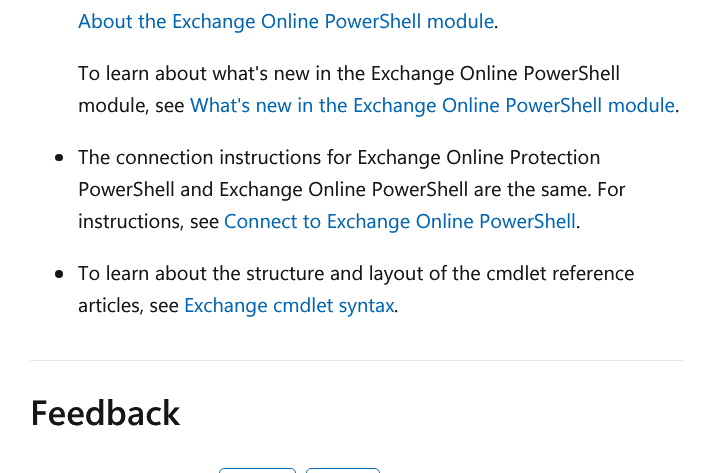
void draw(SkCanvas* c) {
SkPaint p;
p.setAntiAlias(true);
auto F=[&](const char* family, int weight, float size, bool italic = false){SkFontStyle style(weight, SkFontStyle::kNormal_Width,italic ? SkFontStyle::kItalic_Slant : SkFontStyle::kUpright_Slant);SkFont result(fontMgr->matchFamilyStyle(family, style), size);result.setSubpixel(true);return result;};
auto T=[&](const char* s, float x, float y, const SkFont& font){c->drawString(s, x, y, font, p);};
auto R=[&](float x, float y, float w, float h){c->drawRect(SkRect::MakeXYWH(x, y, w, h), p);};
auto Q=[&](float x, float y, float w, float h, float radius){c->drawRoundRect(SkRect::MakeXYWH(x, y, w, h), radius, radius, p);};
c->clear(0xffffffff);
auto f1 = F("Segoe UI",400,20);
p.setColor(0xff0065b3);
T("About the Exchange Online PowerShell module",78,28,f1);
p.setColor(0xff161616);
T(".",494,28,f1);
T("To learn about what's new in the Exchange Online PowerShell",78,80,f1);
T("module, see",78,112,f1);
p.setColor(0xff0065b3);
T("What's new in the Exchange Online PowerShell module",190,112,f1);
p.setColor(0xff161616);
T(".",675,112,f1);
Q(55,154,8,7,3.5);
T("The connection instructions for Exchange Online Protection",78,164,f1);
T("PowerShell and Exchange Online PowerShell are the same. For",78,196,f1);
T("instructions, see",78,228,f1);
p.setColor(0xff0065b3);
T("Connect to Exchange Online PowerShell",224,228,f1);
p.setColor(0xff161616);
T(".",576,228,f1);
c->drawCircle(59,274,4,p);
T("To learn about the structure and layout of the cmdlet reference",78,280,f1);
T("articles, see",78,312,f1);
p.setColor(0xff0065b3);
T("Exchange cmdlet syntax",184,312,f1);
p.setColor(0xff161616);
T(".",394,312,f1);
p.setColor(0xffe6e6e6);
R(30,360,653,1);
auto f2 = F("Segoe UI",600,35);
p.setColor(0xff161616);
T("Feedback",30,425,f2);
p.setStroke(true);
p.setStrokeWidth(1);
p.setColor(0xff0f6cbd);
c->drawRoundRect(SkRect::MakeXYWH(219.5,468.5,76,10),4.5,4.5,p);
c->drawRoundRect(SkRect::MakeXYWH(306.5,468.5,73,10),4.5,4.5,p);
}
